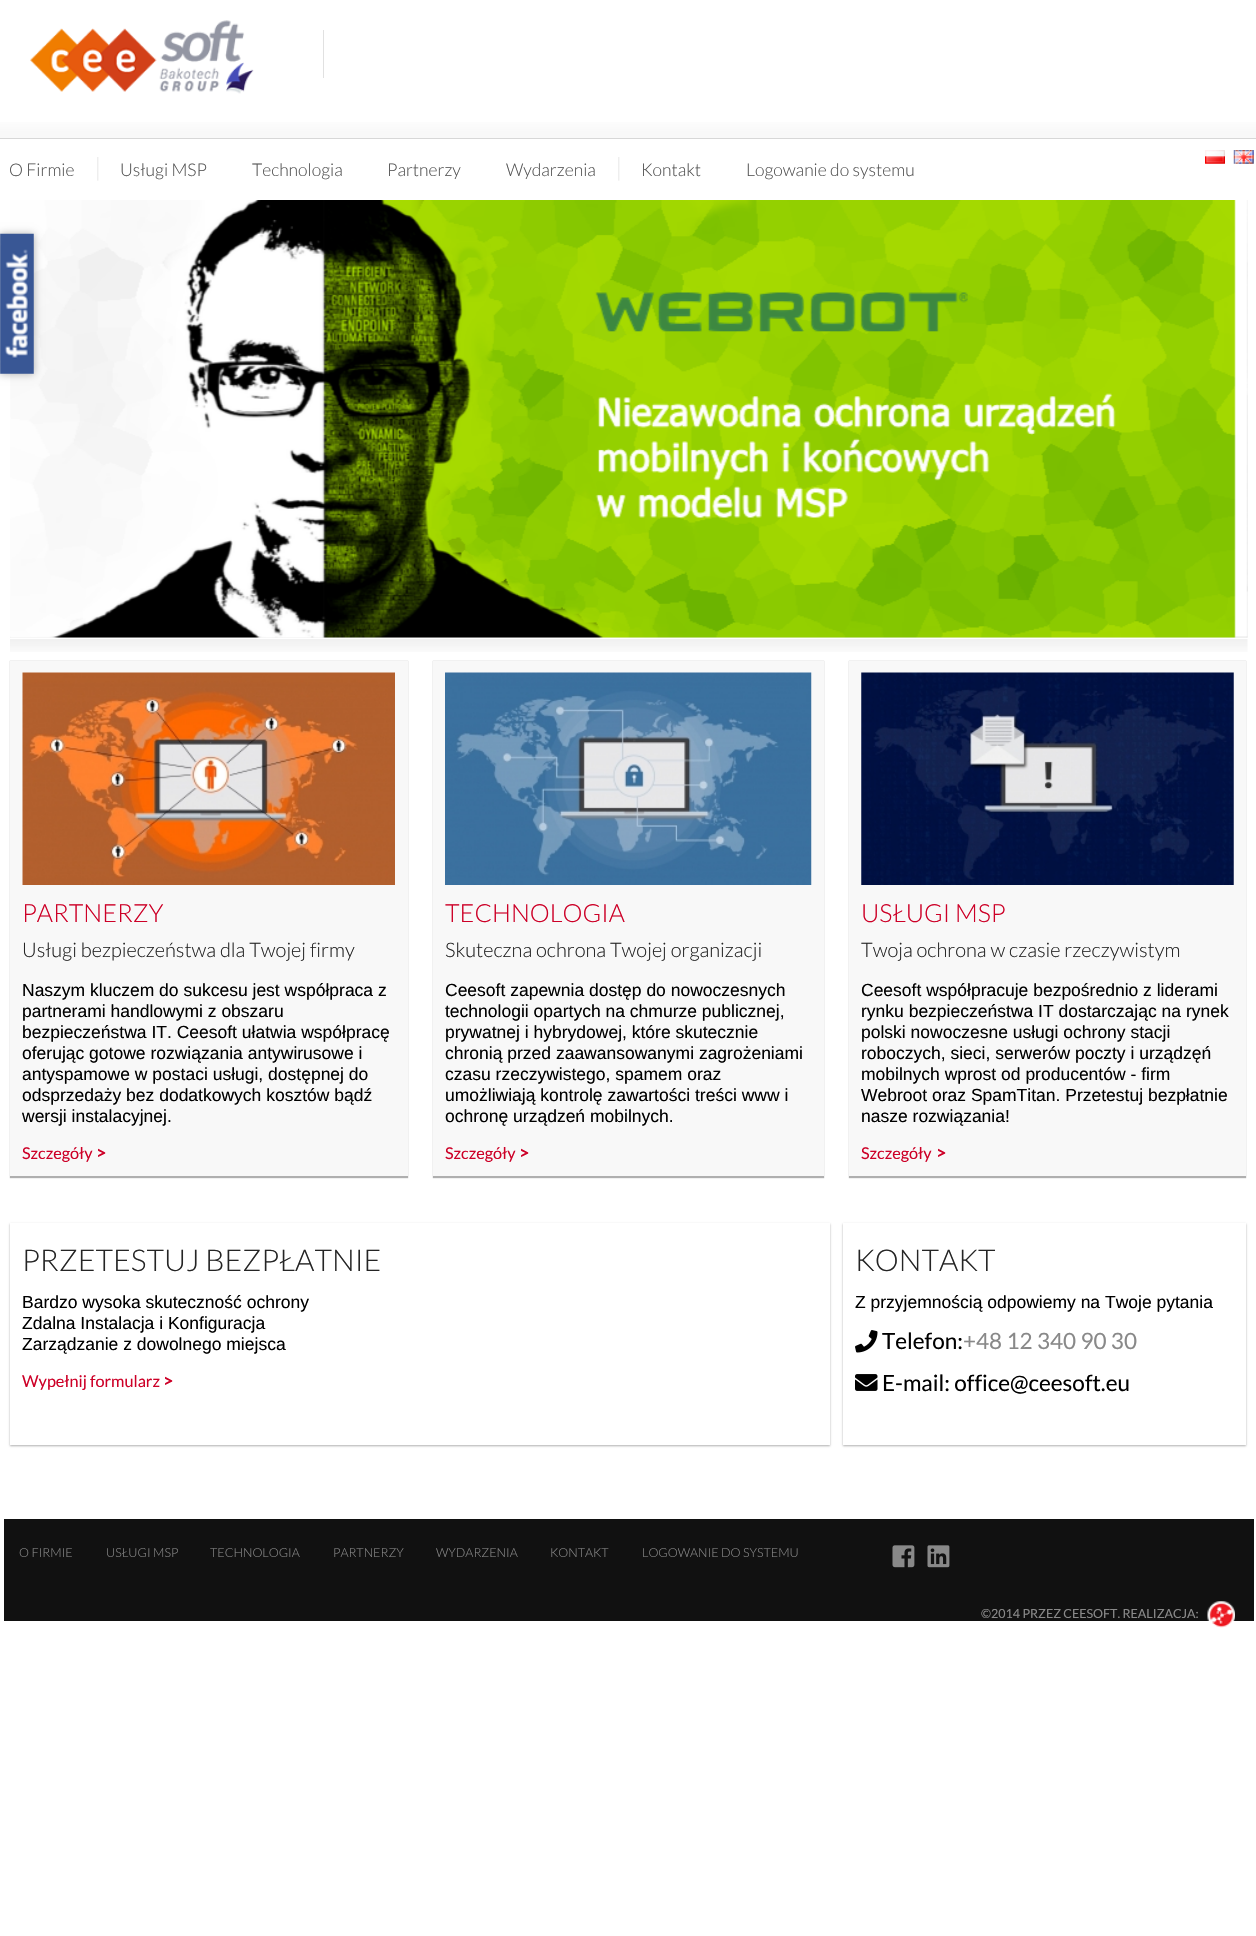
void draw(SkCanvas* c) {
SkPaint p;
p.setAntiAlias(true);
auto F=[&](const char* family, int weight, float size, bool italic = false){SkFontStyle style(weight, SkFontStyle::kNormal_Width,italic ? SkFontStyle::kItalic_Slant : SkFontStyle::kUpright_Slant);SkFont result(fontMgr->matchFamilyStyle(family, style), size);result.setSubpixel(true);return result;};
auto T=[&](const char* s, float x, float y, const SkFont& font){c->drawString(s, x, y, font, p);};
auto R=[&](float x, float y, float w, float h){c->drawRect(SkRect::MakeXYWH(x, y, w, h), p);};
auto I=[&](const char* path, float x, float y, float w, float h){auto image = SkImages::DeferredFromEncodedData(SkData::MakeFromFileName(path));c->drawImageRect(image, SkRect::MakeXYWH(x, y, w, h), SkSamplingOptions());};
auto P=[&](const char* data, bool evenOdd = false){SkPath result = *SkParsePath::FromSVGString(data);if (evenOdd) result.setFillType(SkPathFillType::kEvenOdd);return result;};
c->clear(0xffffffff);
{
const SkColor colors[] = {0xffffffff,0xffffffff,0xfff8f8f8,0xfff8f8f8};
const float stops[] = {0,.84,.96,1};
const SkPoint ends[] = {{628,0}, {628,138}};
p.setShader(SkGradientShader::MakeLinear(ends, colors, stops, 4, SkTileMode::kClamp));
p.setAlpha(255);
}
R(0,122,1256,16);
p.setShader(nullptr);
p.setColor(0xffd7d7d7);
R(0,138,1256,1);
I("1.png",30,20,224,74);
p.setColor(0xffe1e1e1);
R(323,30,1,48);
I("2.png",1205,150,20,14);
I("3.png",1233,150,21,14);
auto f1 = F("Lato",300,17.5);
p.setColor(0xff555555);
T("O Firmie",9,176,f1);
auto f2 = F("Lato",300,25);
p.setColor(0xffebebeb);
T("|",94,176,f2);
p.setColor(0xff555555);
T("Usługi MSP",120,176,f1);
T("Technologia",252,176,f1);
T("Partnerzy",387,176,f1);
T("Wydarzenia",506,176,f1);
p.setColor(0xffebebeb);
T("|",615,176,f2);
p.setColor(0xff555555);
T("Kontakt",641,176,f1);
T("Logowanie do systemu",746,176,f1);
I("5.png",10,636,1238,16);
I("6.png",10,200,1226,438);
p.setColor(0x4d000000);
p.setMaskFilter(SkMaskFilter::MakeBlur(kNormal_SkBlurStyle, 4));
c->drawRect(SkRect::MakeXYWH(0,234,34,140),p);
p.setMaskFilter(nullptr);
I("4.png",0,233,34,141);
p.setColor(0xffffffff);
R(10,638,1238,1);
I("7.png",1246,200,2,438);
p.setColor(0xffafafaf);
p.setMaskFilter(SkMaskFilter::MakeBlur(kNormal_SkBlurStyle, .5));
c->drawRect(SkRect::MakeXYWH(10,661,398,517),p);
p.setMaskFilter(nullptr);
p.setColor(0xfff8f8f8);
R(10,661,398,515);
I("8.png",22,672,373,213);
p.setColor(0xffcd0027);
T("PARTNERZY",22,922,f2);
auto f3 = F("Lato",300,20);
p.setColor(0xff252525);
T("Usługi bezpieczeństwa dla Twojej firmy",22,957,f3);
auto f4 = F("Liberation Sans",400,17.5);
p.setColor(0xff000000);
T("Naszym kluczem do sukcesu jest współpraca z",22,996,f4);
T("partnerami handlowymi z obszaru",22,1017,f4);
T("bezpieczeństwa IT. Ceesoft ułatwia współpracę",22,1038,f4);
T("oferując gotowe rozwiązania antywirusowe i",22,1059,f4);
T("antyspamowe w postaci usługi, dostępnej do",22,1080,f4);
T("odsprzedaży bez dodatkowych kosztów bądź",22,1101,f4);
T("wersji instalacyjnej.",22,1122,f4);
auto f5 = F("Lato",400,16.25);
p.setColor(0xffcd0027);
T("Szczegóły",22,1159,f5);
auto f6 = F("Lato",700,18);
T(">",96,1159,f6);
p.setColor(0xffafafaf);
p.setMaskFilter(SkMaskFilter::MakeBlur(kNormal_SkBlurStyle, .5));
c->drawRect(SkRect::MakeXYWH(433,661,391,517),p);
p.setMaskFilter(nullptr);
p.setColor(0xfff8f8f8);
R(433,661,391,515);
I("9.png",445,672,367,213);
p.setColor(0xffcd0027);
T("TECHNOLOGIA",445,922,f2);
p.setColor(0xff252525);
T("Skuteczna ochrona Twojej organizacji",445,957,f3);
p.setColor(0xff000000);
T("Ceesoft zapewnia dostęp do nowoczesnych",445,996,f4);
T("technologii opartych na chmurze publicznej,",445,1017,f4);
T("prywatnej i hybrydowej, które skutecznie",445,1038,f4);
T("chronią przed zaawansowanymi zagrożeniami",445,1059,f4);
T("czasu rzeczywistego, spamem oraz",445,1080,f4);
T("umożliwiają kontrolę zawartości treści www i",445,1101,f4);
T("ochronę urządzeń mobilnych.",445,1122,f4);
p.setColor(0xffcd0027);
T("Szczegóły",445,1159,f5);
T(">",519,1159,f6);
p.setColor(0xffafafaf);
p.setMaskFilter(SkMaskFilter::MakeBlur(kNormal_SkBlurStyle, .5));
c->drawRect(SkRect::MakeXYWH(849,661,397,517),p);
p.setMaskFilter(nullptr);
p.setColor(0xfff8f8f8);
R(849,661,397,515);
I("10.png",861,672,373,213);
p.setColor(0xffcd0027);
T("USŁUGI MSP",861,922,f2);
p.setColor(0xff252525);
T("Twoja ochrona w czasie rzeczywistym",861,957,f3);
p.setColor(0xff000000);
T("Ceesoft współpracuje bezpośrednio z liderami",861,996,f4);
T("rynku bezpieczeństwa IT dostarczając na rynek",861,1017,f4);
T("polski nowoczesne usługi ochrony stacji",861,1038,f4);
T("roboczych, sieci, serwerów poczty i urządzęń",861,1059,f4);
T("mobilnych wprost od producentów - firm",861,1080,f4);
T("Webroot oraz SpamTitan. Przetestuj bezpłatnie",861,1101,f4);
T("nasze rozwiązania!",861,1122,f4);
p.setColor(0xffcd0027);
T("Szczegóły",861,1159,f5);
T(">",936,1159,f6);
c->save();
c->clipPath(P("M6 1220h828v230h-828zm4 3h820v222h-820z",true),true);
p.setColor(0xffafafaf);
p.setMaskFilter(SkMaskFilter::MakeBlur(kNormal_SkBlurStyle, 1));
c->drawRect(SkRect::MakeXYWH(10,1224,820,222),p);
p.setMaskFilter(nullptr);
c->restore();
auto f7 = F("Lato",300,30);
p.setColor(0xff252525);
T("PRZETESTUJ BEZPŁATNIE",22,1271,f7);
p.setColor(0xff000000);
T("Bardzo wysoka skuteczność ochrony",22,1308,f4);
T("Zdalna Instalacja i Konfiguracja",22,1329,f4);
T("Zarządzanie z dowolnego miejsca",22,1350,f4);
p.setColor(0xffcd0027);
T("Wypełnij formularz",22,1387,f5);
T(">",163,1387,f6);
c->save();
c->clipPath(P("M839 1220h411v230h-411zm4 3h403v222h-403z",true),true);
p.setColor(0xffafafaf);
p.setMaskFilter(SkMaskFilter::MakeBlur(kNormal_SkBlurStyle, 1));
c->drawRect(SkRect::MakeXYWH(843,1224,403,222),p);
p.setMaskFilter(nullptr);
c->restore();
p.setColor(0xff252525);
T("KONTAKT",855,1271,f7);
p.setColor(0xff000000);
T("Z przyjemnością odpowiemy na Twoje pytania",855,1308,f4);
I("11.png",855,1330,23,23);
auto f8 = F("Lato",400,22.5);
T("Telefon:",882,1349,f8);
p.setColor(0xff898989);
T("+48 12 340 90 30",963,1349,f8);
I("12.png",855,1374,23,17);
p.setColor(0xff000000);
T("E-mail: office@ceesoft.eu",882,1391,f8);
p.setColor(0xff111111);
R(4,1519,1250,102);
auto f9 = F("Lato",300,12.5);
p.setColor(0xff898989);
T("O FIRMIE",19,1557,f9);
T("USŁUGI MSP",106,1557,f9);
T("TECHNOLOGIA",210,1557,f9);
T("PARTNERZY",333,1557,f9);
T("WYDARZENIA",436,1557,f9);
T("KONTAKT",550,1557,f9);
T("LOGOWANIE DO SYSTEMU",642,1557,f9);
I("13.png",892,1545,23,23);
I("14.png",927,1545,23,23);
auto f10 = F("Lato",400,12.5);
T("©2014 PRZEZ CEESOFT. REALIZACJA:",981,1618,f10);
I("15.png",1207,1601,28,27);
}
